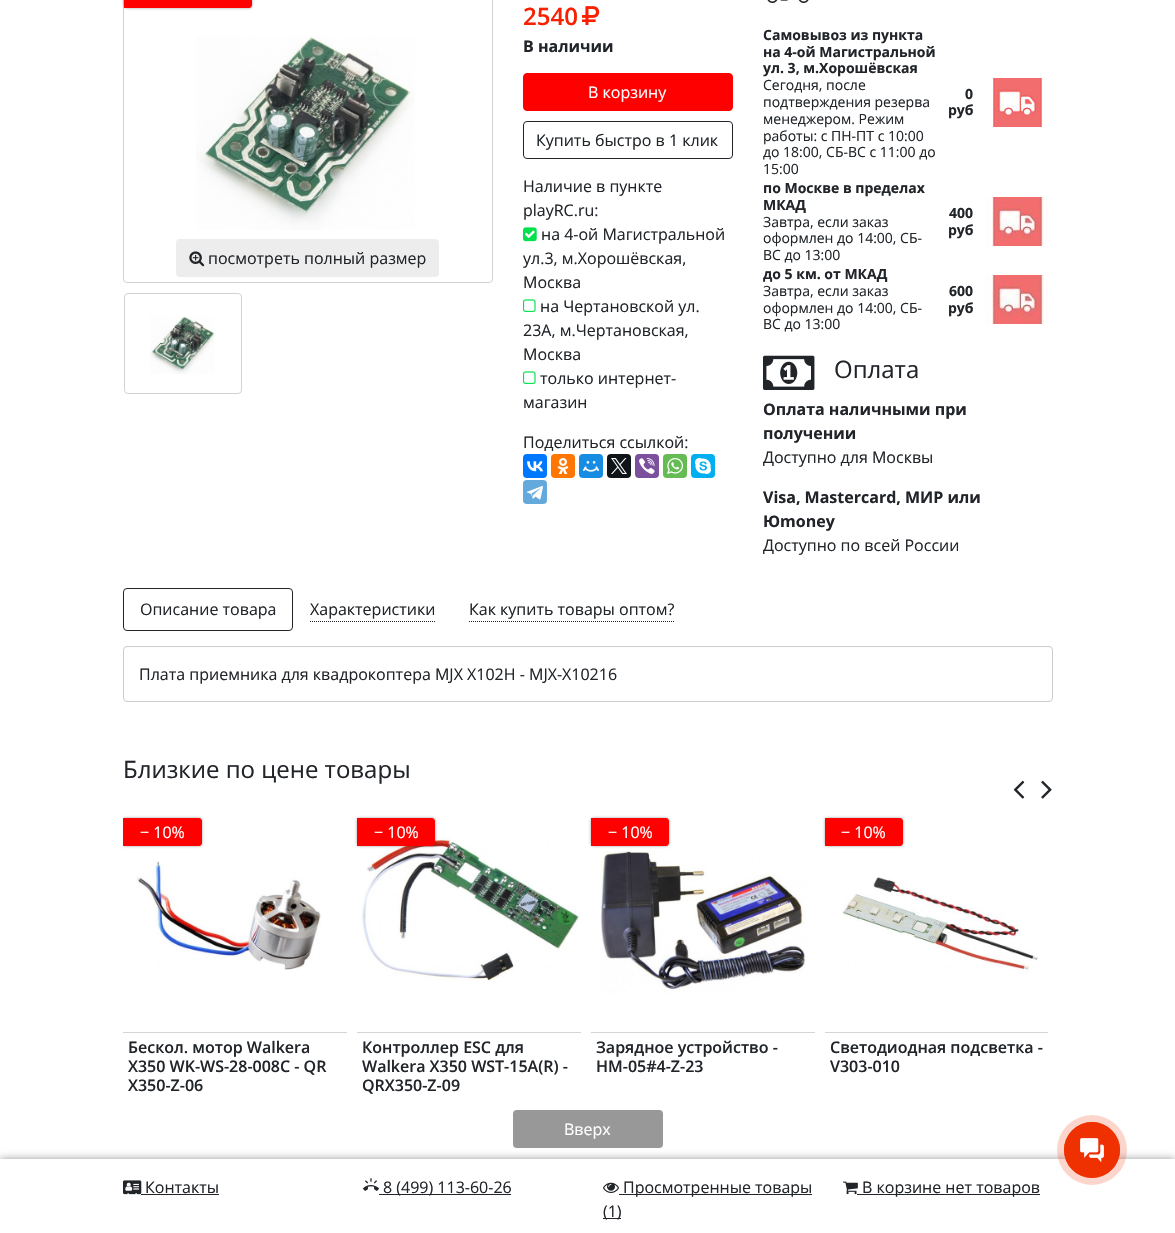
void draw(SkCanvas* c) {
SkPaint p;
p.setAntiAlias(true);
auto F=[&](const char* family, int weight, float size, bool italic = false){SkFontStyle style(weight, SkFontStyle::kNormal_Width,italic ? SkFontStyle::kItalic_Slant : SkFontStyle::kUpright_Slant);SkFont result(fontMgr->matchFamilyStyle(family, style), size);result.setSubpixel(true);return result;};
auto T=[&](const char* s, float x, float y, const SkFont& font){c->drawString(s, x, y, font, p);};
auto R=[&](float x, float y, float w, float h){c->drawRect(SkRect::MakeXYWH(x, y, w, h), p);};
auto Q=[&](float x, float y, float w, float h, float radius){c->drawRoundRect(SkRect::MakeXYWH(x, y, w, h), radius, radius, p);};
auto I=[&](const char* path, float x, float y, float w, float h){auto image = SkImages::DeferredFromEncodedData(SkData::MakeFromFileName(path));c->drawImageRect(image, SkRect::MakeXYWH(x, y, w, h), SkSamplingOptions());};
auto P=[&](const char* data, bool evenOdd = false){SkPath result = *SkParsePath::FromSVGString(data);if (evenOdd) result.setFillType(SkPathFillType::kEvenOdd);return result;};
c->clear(0xffffffff);
p.setStroke(true);
p.setStrokeWidth(1);
p.setColor(0xffd2d2d2);
c->drawRoundRect(SkRect::MakeXYWH(123.5,-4.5,369,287),3.5,3.5,p);
p.setStroke(false);
p.setColor(0x66000000);
p.setMaskFilter(SkMaskFilter::MakeBlur(kNormal_SkBlurStyle, 1.5));
c->drawRoundRect(SkRect::MakeXYWH(124,-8,128,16),3,3,p);
p.setMaskFilter(nullptr);
p.setColor(0xffff0000);
c->drawPath(P("M124-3h125c1.5 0 3 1.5 3 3v5c0 1.5-1.5 3-3 3h-125z"),p);
I("1.png",196,36,219,194);
p.setColor(0xffededed);
Q(176,239,263,38,4);
I("2.png",189,251,16,16);
auto f1 = F("Open Sans",400,16);
p.setColor(0xff212529);
T("посмотреть полный размер",208,264,f1);
p.setStroke(true);
p.setColor(0xffd2d2d2);
c->drawRoundRect(SkRect::MakeXYWH(124.5,293.5,117,100),3.5,3.5,p);
I("3.png",150,316,65,58);
auto f2 = F("Open Sans",600,24);
p.setStroke(false);
p.setColor(0xfff82000);
T("2540",523,25,f2);
I("4.png",582,6,18,19);
auto f3 = F("Open Sans",700,16);
p.setColor(0xff212529);
T("В наличии",523,52,f3);
p.setColor(0xffff0000);
c->drawRoundRect(SkRect::MakeXYWH(523.5,73.5,209,37),3.5,3.5,p);
p.setStroke(true);
c->drawRoundRect(SkRect::MakeXYWH(523.5,73.5,209,37),3.5,3.5,p);
p.setStroke(false);
p.setColor(0xffffffff);
T("В корзину",588,98,f1);
p.setStroke(true);
p.setColor(0xff212529);
c->drawRoundRect(SkRect::MakeXYWH(523.5,121.5,209,37),3.5,3.5,p);
p.setStroke(false);
T("Купить быстро в 1 клик",536,146,f1);
T("Наличие в пункте",523,192,f1);
T("playRC.ru:",523,216,f1);
I("5.png",523,227,14,15);
T("на 4-ой Магистральной",541,240,f1);
T("ул.3, м.Хорошёвская,",523,264,f1);
T("Москва",523,288,f1);
I("6.png",523,299,13,13);
T("на Чертановской ул.",540,312,f1);
T("23А, м.Чертановская,",523,336,f1);
T("Москва",523,360,f1);
I("6.png",523,371,13,13);
T("только интернет-",540,384,f1);
T("магазин",523,408,f1);
T("Поделиться ссылкой:",523,448,f1);
p.setColor(0xff0077ff);
Q(523,454,24,24,4);
I("7.png",527,461,16,11);
p.setColor(0xffff7700);
Q(551,454,24,24,4);
I("8.png",557,458,12,16);
p.setColor(0xff168de2);
Q(579,454,24,24,4);
I("9.png",583,461,16,11);
p.setColor(0xff0f1419);
Q(607,454,24,24,4);
I("10.png",611,458,16,16);
p.setColor(0xff7b519d);
Q(635,454,24,24,4);
I("11.png",639,458,16,16);
p.setColor(0xff65bc54);
Q(663,454,24,24,4);
I("12.png",667,458,16,16);
p.setColor(0xff00aff0);
Q(691,454,24,24,4);
I("13.png",695,458,16,16);
p.setColor(0xff64a9dc);
Q(523,480,24,24,4);
I("14.png",527,486,16,14);
I("15.png",767,0,42,3);
auto f4 = F("Open Sans",700,14);
p.setColor(0xff212529);
T("Самовывоз из пункта",763,40,f4);
T("на 4-ой Магистральной",763,57,f4);
T("ул. 3, м.Хорошёвская",763,73,f4);
auto f5 = F("Open Sans",400,14);
T("Сегодня, после",763,90,f5);
T("подтверждения резерва",763,107,f5);
T("менеджером. Режим",763,124,f5);
T("работы: с ПН-ПТ с 10:00",763,141,f5);
T("до 18:00, СБ-ВС с 11:00 до",763,157,f5);
T("15:00",763,174,f5);
T("0",965,99,f4);
T("руб",948,115,f4);
I("16.png",993,78,49,49);
T("по Москве в пределах",763,193,f4);
T("МКАД",763,210,f4);
T("Завтра, если заказ",763,227,f5);
T("оформлен до 14:00, СБ-",763,243,f5);
T("ВС до 13:00",763,260,f5);
T("400",949,218,f4);
T("руб",948,235,f4);
I("17.png",986,197,61,49);
T("до 5 км. от МКАД",763,279,f4);
T("Завтра, если заказ",763,296,f5);
T("оформлен до 14:00, СБ-",763,313,f5);
T("ВС до 13:00",763,329,f5);
T("600",949,296,f4);
T("руб",948,313,f4);
I("18.png",985,275,62,49);
I("19.png",763,355,52,35);
auto f6 = F("Open Sans",400,24);
T("Оплата",834,378,f6);
T("Оплата наличными при",763,415,f3);
T("получении",763,439,f3);
T("Доступно для Москвы",763,463,f1);
T("Visa, Mastercard, МИР или",763,503,f3);
T("Юmoney",763,527,f3);
T("Доступно по всей России",763,551,f1);
p.setStroke(true);
c->drawRoundRect(SkRect::MakeXYWH(123.5,588.5,169,42),3.5,3.5,p);
p.setStroke(false);
T("Описание товара",140,615,f1);
T("Характеристики",310,615,f1);
p.setStroke(true);
p.setPathEffect(SkDashPathEffect::Make({{1,1}}, 0));
c->drawPath(P("M310 621.5h125"),p);
p.setPathEffect(nullptr);
p.setStroke(false);
T("Как купить товары оптом?",469,615,f1);
p.setStroke(true);
p.setPathEffect(SkDashPathEffect::Make({{1,1}}, 0));
c->drawPath(P("M469 621.5h206"),p);
p.setPathEffect(nullptr);
p.setColor(0xffcccccc);
c->drawRoundRect(SkRect::MakeXYWH(123.5,646.5,929,55),3.5,3.5,p);
p.setStroke(false);
p.setColor(0xff212529);
T("Плата приемника для квадрокоптера MJX X102H - MJX-X10216",139,680,f1);
T("Близкие по цене товары",123,778,f6);
I("20.png",1013,780,12,19);
I("21.png",1041,780,11,19);
c->save();
c->clipRect(SkRect::MakeXYWH(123,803,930,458));
p.setColor(0x66000000);
p.setMaskFilter(SkMaskFilter::MakeBlur(kNormal_SkBlurStyle, 1.5));
c->drawRoundRect(SkRect::MakeXYWH(123,818,79,28),3,3,p);
p.setMaskFilter(nullptr);
c->restore();
p.setColor(0xffff0000);
c->drawPath(P("M123 818h76c1.5 0 3 1.5 3 3v22c0 1.5-1.5 3-3 3h-76z"),p);
p.setColor(0xffffffff);
T("− 10%",140,838,f1);
p.setColor(0xffd4d4d4);
R(123,1032,224,1);
I("22.png",136,861,186,109);
auto f7 = F("Open Sans",600,16);
p.setColor(0xff212529);
T("Бескол. мотор Walkera",128,1053,f7);
T("X350 WK-WS-28-008C - QR",128,1072,f7);
T("X350-Z-06",128,1091,f7);
I("23.png",360,836,219,145);
p.setColor(0x66000000);
p.setMaskFilter(SkMaskFilter::MakeBlur(kNormal_SkBlurStyle, 1.5));
c->drawRoundRect(SkRect::MakeXYWH(357,818,78,28),3,3,p);
p.setMaskFilter(nullptr);
p.setColor(0xffff0000);
c->drawPath(P("M357 818h75c1.5 0 3 1.5 3 3v22c0 1.5-1.5 3-3 3h-75z"),p);
p.setColor(0xffffffff);
T("− 10%",374,838,f1);
p.setColor(0xffd4d4d4);
R(357,1032,224,1);
p.setColor(0xff212529);
T("Контроллер ESC для",362,1053,f7);
T("Walkera X350 WST-15A(R) -",362,1072,f7);
T("QRX350-Z-09",362,1091,f7);
I("24.png",599,851,207,143);
p.setColor(0x66000000);
p.setMaskFilter(SkMaskFilter::MakeBlur(kNormal_SkBlurStyle, 1.5));
c->drawRoundRect(SkRect::MakeXYWH(591,818,78,28),3,3,p);
p.setMaskFilter(nullptr);
p.setColor(0xffff0000);
c->drawPath(P("M591 818h75c1.5 0 3 1.5 3 3v22c0 1.5-1.5 3-3 3h-75z"),p);
p.setColor(0xffffffff);
T("− 10%",608,838,f1);
p.setColor(0xffd4d4d4);
R(591,1032,224,1);
p.setColor(0xff212529);
T("Зарядное устройство -",596,1053,f7);
T("HM-05#4-Z-23",596,1072,f7);
p.setColor(0x66000000);
p.setMaskFilter(SkMaskFilter::MakeBlur(kNormal_SkBlurStyle, 1.5));
c->drawRoundRect(SkRect::MakeXYWH(825,818,78,28),3,3,p);
p.setMaskFilter(nullptr);
p.setColor(0xffff0000);
c->drawPath(P("M825 818h75c1.5 0 3 1.5 3 3v22c0 1.5-1.5 3-3 3h-75z"),p);
p.setColor(0xffffffff);
T("− 10%",841,838,f1);
p.setColor(0xffd4d4d4);
R(825,1032,223,1);
I("25.png",842,877,196,97);
p.setColor(0xff212529);
T("Cветодиодная подсветка -",830,1053,f7);
T("V303-010",830,1072,f7);
p.setColor(0xff989898);
Q(513,1110,150,38,4);
p.setColor(0xffffffff);
T("Вверх",564,1135,f1);
p.setColor(0x66000000);
p.setMaskFilter(SkMaskFilter::MakeBlur(kNormal_SkBlurStyle, 4));
c->drawRect(SkRect::MakeXYWH(0,1159,1175,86),p);
p.setMaskFilter(nullptr);
p.setColor(0xffffffff);
R(0,1159,1175,74);
p.setColor(0x33ef3000);
c->drawCircle(1092,1150,35,p);
p.setStroke(true);
p.setStrokeWidth(.8);
p.setColor(0xffef3000);
c->drawCircle(1092,1150,27.6,p);
p.setStroke(false);
c->drawCircle(1092,1150,28,p);
I("26.png",1080,1138,24,24);
I("27.png",123,1180,19,15);
p.setColor(0xff212529);
T("Контакты",145,1193,f1);
R(141,1194,78,1);
I("28.png",363,1178,16,13);
R(379,1194,132,1);
T("8 (499) 113-60-26",383,1193,f1);
I("29.png",603,1182,16,11);
R(619,1194,193,1);
T("Просмотренные товары",623,1193,f1);
R(603,1218,18,1);
T("(1)",603,1217,f1);
I("30.png",843,1181,15,14);
R(857,1194,183,1);
T("В корзине нет товаров",862,1193,f1);
}
